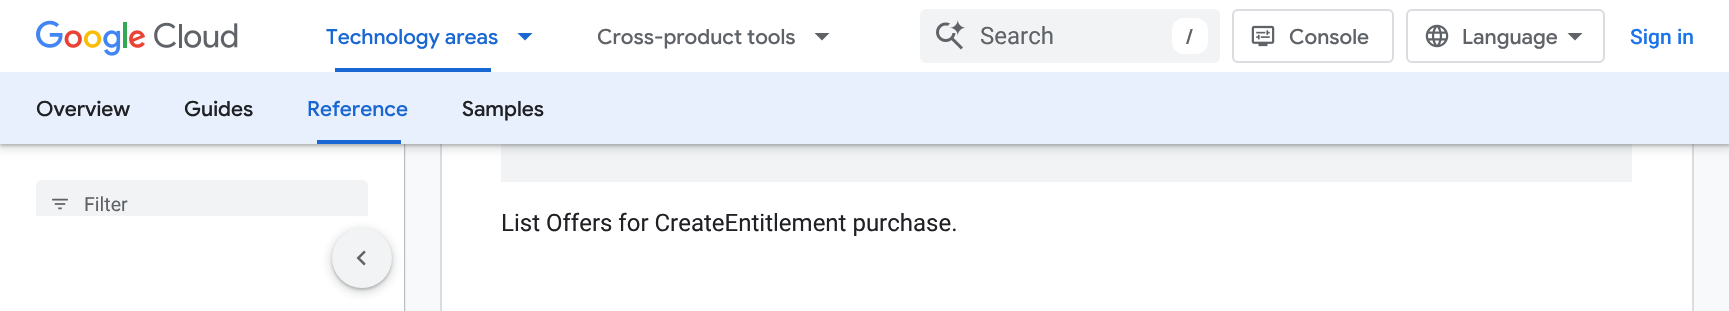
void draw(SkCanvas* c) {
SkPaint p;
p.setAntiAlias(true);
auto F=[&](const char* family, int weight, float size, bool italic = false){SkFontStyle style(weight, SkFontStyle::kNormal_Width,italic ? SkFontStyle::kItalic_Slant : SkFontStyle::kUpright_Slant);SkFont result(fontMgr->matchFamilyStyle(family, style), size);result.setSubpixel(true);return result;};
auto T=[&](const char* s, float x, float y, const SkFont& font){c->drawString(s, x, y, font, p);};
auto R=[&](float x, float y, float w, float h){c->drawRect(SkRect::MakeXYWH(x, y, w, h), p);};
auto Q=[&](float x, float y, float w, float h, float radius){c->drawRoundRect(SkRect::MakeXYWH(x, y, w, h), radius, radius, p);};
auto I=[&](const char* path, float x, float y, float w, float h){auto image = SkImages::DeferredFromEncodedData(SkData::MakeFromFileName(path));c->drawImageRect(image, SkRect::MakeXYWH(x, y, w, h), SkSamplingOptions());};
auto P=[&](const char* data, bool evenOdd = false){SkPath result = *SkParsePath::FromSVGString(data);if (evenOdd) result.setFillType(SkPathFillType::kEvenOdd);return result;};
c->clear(0xfff8f9fa);
p.setColor(0xff3c4043);
p.setMaskFilter(SkMaskFilter::MakeBlur(kNormal_SkBlurStyle, 1));
c->drawRect(SkRect::MakeXYWH(0,2,404,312),p);
p.setMaskFilter(nullptr);
p.setColor(0xffffffff);
R(0,144,404,72);
R(442,144,1250,167);
p.setStroke(true);
p.setStrokeWidth(2);
p.setColor(0xffdadce0);
c->drawRect(SkRect::MakeXYWH(441,-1,1252,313),p);
p.setStroke(false);
p.setColor(0xfff1f3f4);
R(501,144,1131,38);
p.setColor(0x263c4043);
p.setMaskFilter(SkMaskFilter::MakeBlur(kNormal_SkBlurStyle, 4.5));
c->drawRect(SkRect::MakeXYWH(-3,-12,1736,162),p);
p.setMaskFilter(nullptr);
p.setColor(0x4d3c4043);
p.setMaskFilter(SkMaskFilter::MakeBlur(kNormal_SkBlurStyle, 1.5));
c->drawRect(SkRect::MakeXYWH(0,-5,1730,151),p);
p.setMaskFilter(nullptr);
p.setColor(0xffffffff);
R(0,0,1729,72);
I("1.png",36,20,202,36);
auto f1 = F("Google Sans",500,21);
p.setColor(0xff1967d2);
T("Technology areas",326,44,f1);
R(335,68,156,4);
c->drawPath(P("M517.5 33h15l-7.5 7.5z"),p);
p.setColor(0xff5f6368);
T("Cross-product tools",597,44,f1);
c->drawPath(P("M814.5 33h15l-7.5 7.5z"),p);
p.setColor(0xfff1f3f4);
Q(920,9,300,54,6);
I("2.png",936,20,30,30);
auto f2 = F("Roboto",400,24);
p.setColor(0xff5f6368);
T("Search",980,44,f2);
p.setColor(0xffffffff);
Q(1172,18,36,36,12);
p.setColor(0xff5f6368);
T("/",1186,44,f1);
p.setStroke(true);
p.setColor(0xffdadce0);
c->drawRoundRect(SkRect::MakeXYWH(1233,10,160,52),5,5,p);
I("3.png",1251,25,24,22);
p.setStroke(false);
p.setColor(0xff5f6368);
T("Console",1289,44,f1);
p.setStroke(true);
p.setColor(0xffdadce0);
c->drawRoundRect(SkRect::MakeXYWH(1407,10,197,52),5,5,p);
I("4.png",1425,24,24,24);
p.setStroke(false);
p.setColor(0xff5f6368);
T("Language",1462,44,f1);
c->drawPath(P("M1575 40.5l-7.5-7.5h15z"),p);
auto f3 = F("Roboto",500,21);
p.setColor(0xff1a73e8);
T("Sign in",1630,44,f3);
p.setColor(0xffe8f0fe);
R(0,72,1729,72);
p.setColor(0xff202124);
T("Overview",36,116,f1);
T("Guides",184,116,f1);
p.setColor(0xff1967d2);
T("Reference",307,116,f1);
R(317,140,84,4);
p.setColor(0xff202124);
T("Samples",462,116,f1);
p.setColor(0xfff1f3f4);
Q(36,180,332,48,6);
I("5.png",52,198,16,12);
auto f4 = F("Roboto",400,19.5);
p.setColor(0xff5f6368);
T("Filter",84,211,f4);
p.setColor(0xffffffff);
R(0,216,404,95);
p.setColor(0x263c4043);
p.setMaskFilter(SkMaskFilter::MakeBlur(kNormal_SkBlurStyle, 4.5));
c->drawRoundRect(SkRect::MakeXYWH(329,228,66,66),33,33,p);
p.setMaskFilter(nullptr);
p.setColor(0x4d3c4043);
p.setMaskFilter(SkMaskFilter::MakeBlur(kNormal_SkBlurStyle, 1.5));
c->drawRoundRect(SkRect::MakeXYWH(332,230,60,60),30,30,p);
p.setMaskFilter(nullptr);
p.setColor(0xfff1f3f4);
c->drawCircle(362,258,30,p);
I("6.png",356,250,10,16);
p.setColor(0xff202124);
T("List Offers for CreateEntitlement purchase.",501,231,f2);
}
